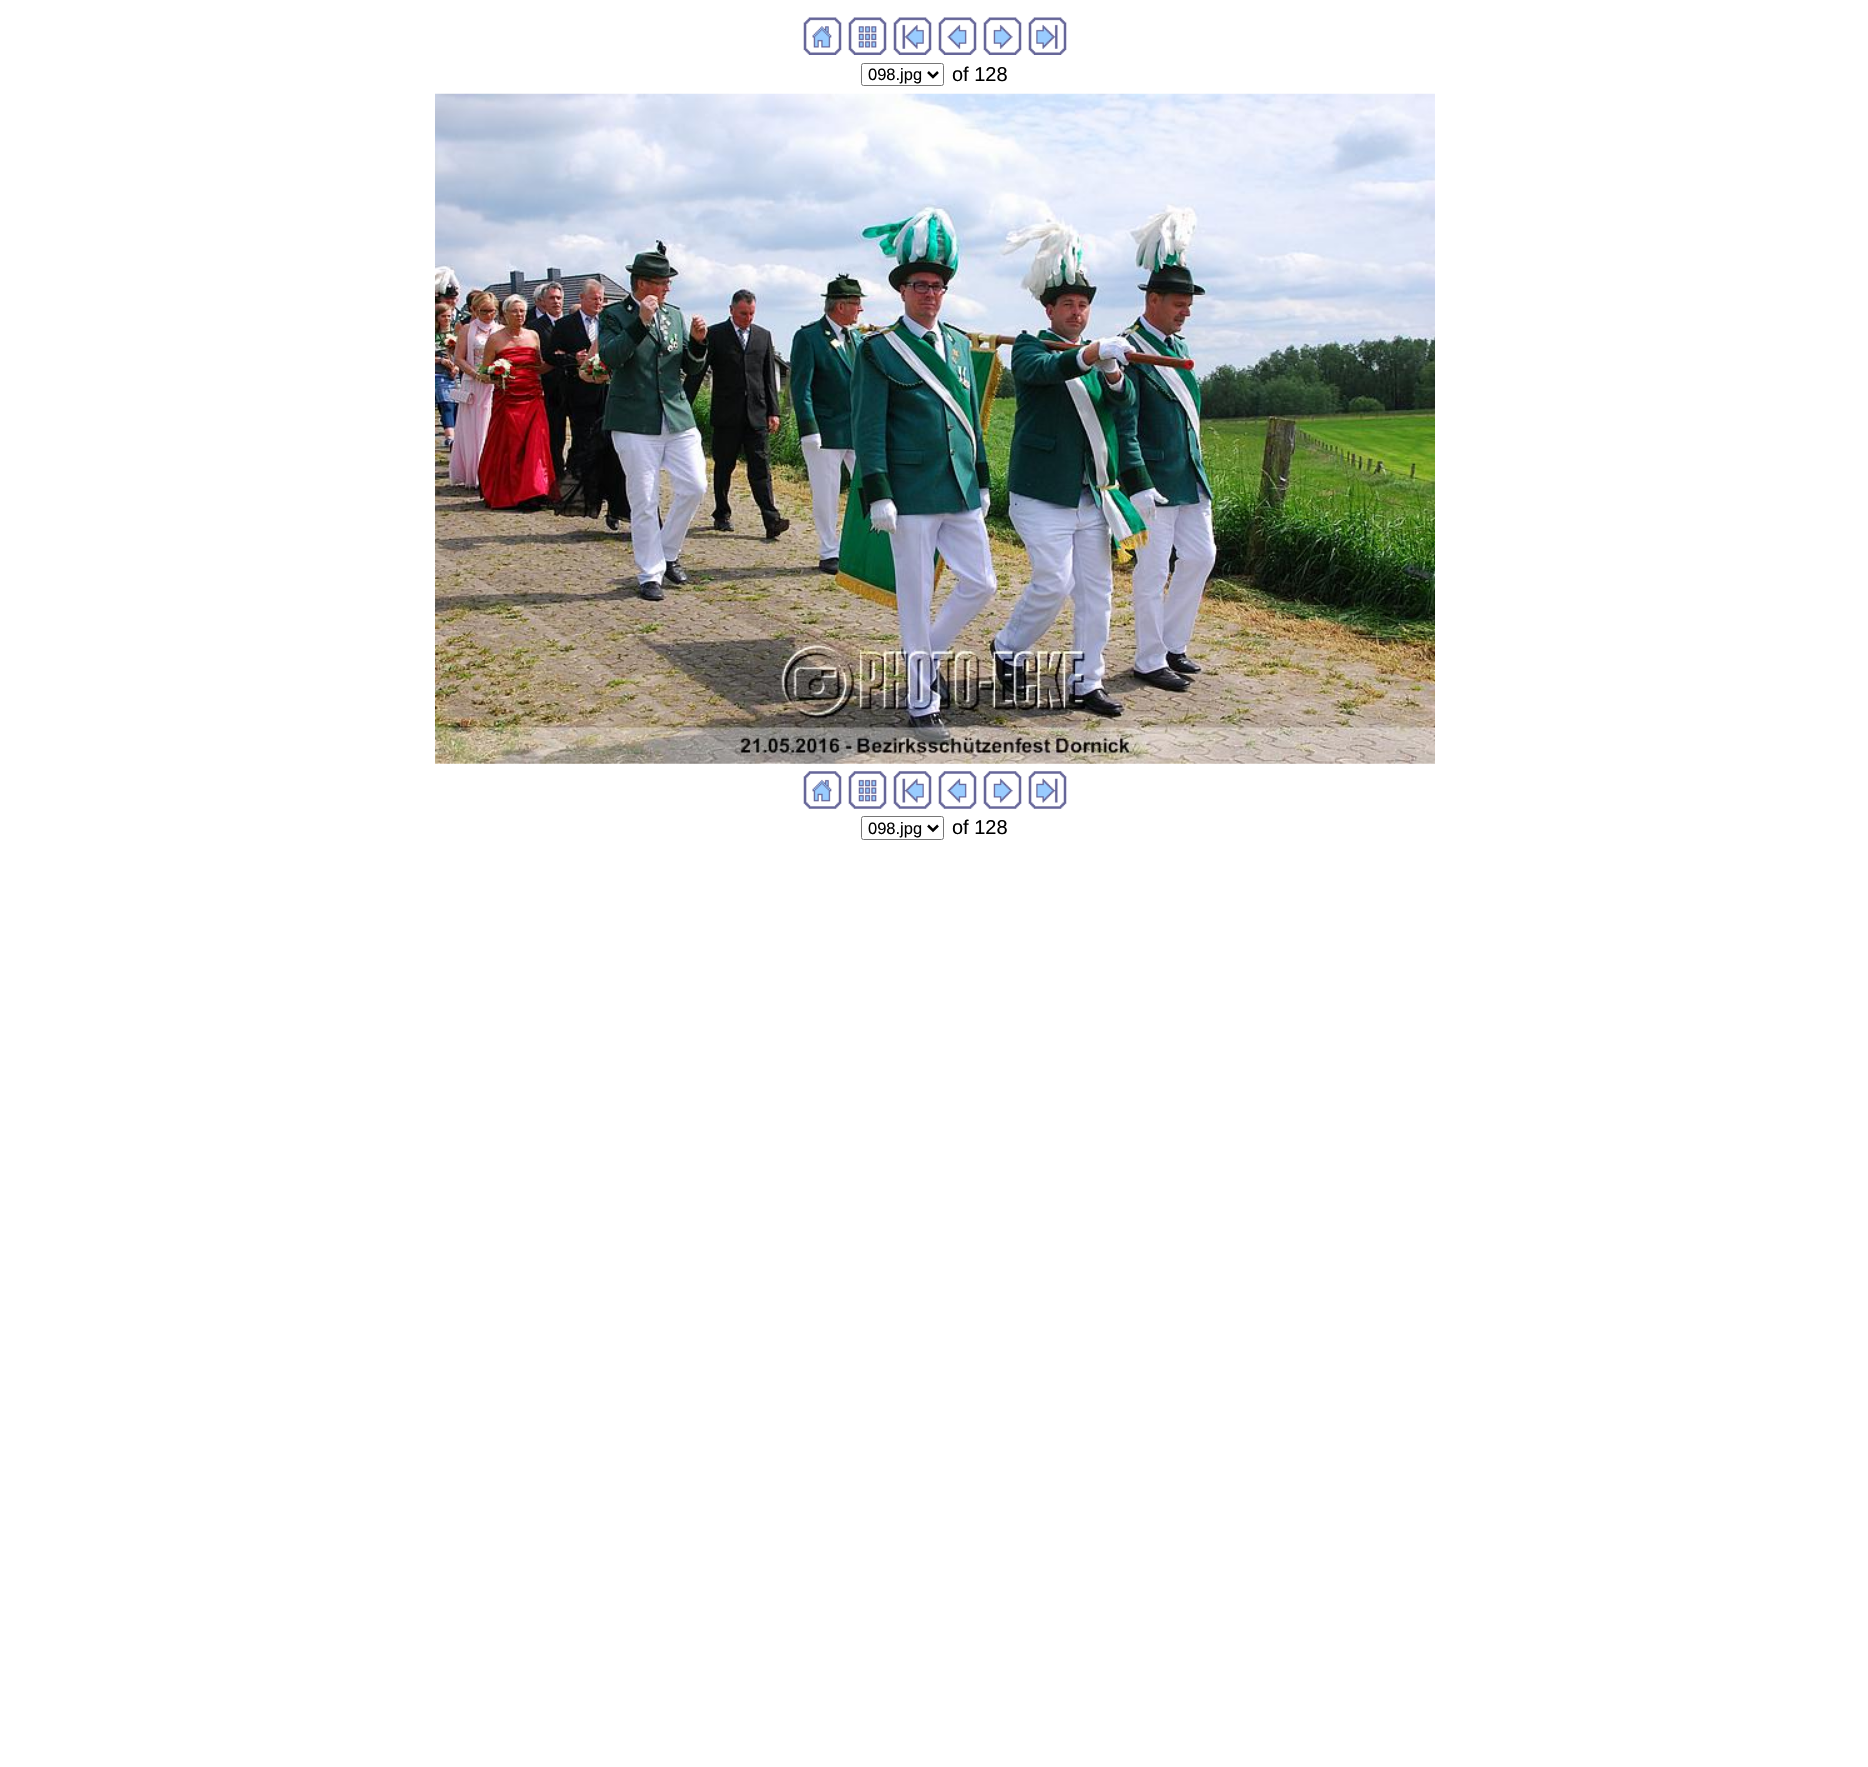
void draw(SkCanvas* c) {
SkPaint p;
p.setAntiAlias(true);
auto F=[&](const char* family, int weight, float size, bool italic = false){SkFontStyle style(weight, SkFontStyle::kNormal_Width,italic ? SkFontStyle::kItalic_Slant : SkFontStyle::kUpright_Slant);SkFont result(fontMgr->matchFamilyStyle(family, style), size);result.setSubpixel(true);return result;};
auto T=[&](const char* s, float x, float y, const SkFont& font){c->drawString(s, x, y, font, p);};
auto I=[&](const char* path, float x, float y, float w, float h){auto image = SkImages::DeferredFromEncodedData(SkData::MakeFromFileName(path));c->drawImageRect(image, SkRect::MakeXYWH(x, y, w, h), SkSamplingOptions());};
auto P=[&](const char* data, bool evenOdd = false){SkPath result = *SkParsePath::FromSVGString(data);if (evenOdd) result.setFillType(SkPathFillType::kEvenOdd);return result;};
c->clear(0xffffffff);
I("1.png",803,17,39,38);
I("2.png",848,17,39,38);
I("3.png",893,17,39,38);
I("4.png",938,17,39,38);
I("5.png",983,17,39,38);
I("6.png",1028,17,39,38);
p.setStroke(true);
p.setStrokeWidth(1);
p.setColor(0xff767676);
c->drawRoundRect(SkRect::MakeXYWH(861.5,63.5,82,22),2,2,p);
p.setStrokeWidth(2.5);
p.setColor(0xff000000);
c->drawPath(P("M928 72l5 5l5-5"),p);
auto f1 = F("Liberation Sans",400,16.5);
p.setStroke(false);
T("098.jpg",868,80,f1);
auto f2 = F("Liberation Sans",400,20);
T("of 128",952,81,f2);
I("7.png",435,93,1000,671);
I("8.png",803,771,39,38);
I("9.png",848,771,39,38);
I("10.png",893,771,39,38);
I("11.png",938,771,39,38);
I("12.png",983,771,39,38);
I("13.png",1028,771,39,38);
p.setStroke(true);
p.setStrokeWidth(1);
p.setColor(0xff767676);
c->drawRoundRect(SkRect::MakeXYWH(861.5,816.5,82,23),2,2,p);
p.setStrokeWidth(2.5);
p.setColor(0xff000000);
c->drawPath(P("M928 825.5l5 5l5-5"),p);
p.setStroke(false);
T("098.jpg",868,834,f1);
T("of 128",952,834,f2);
}
